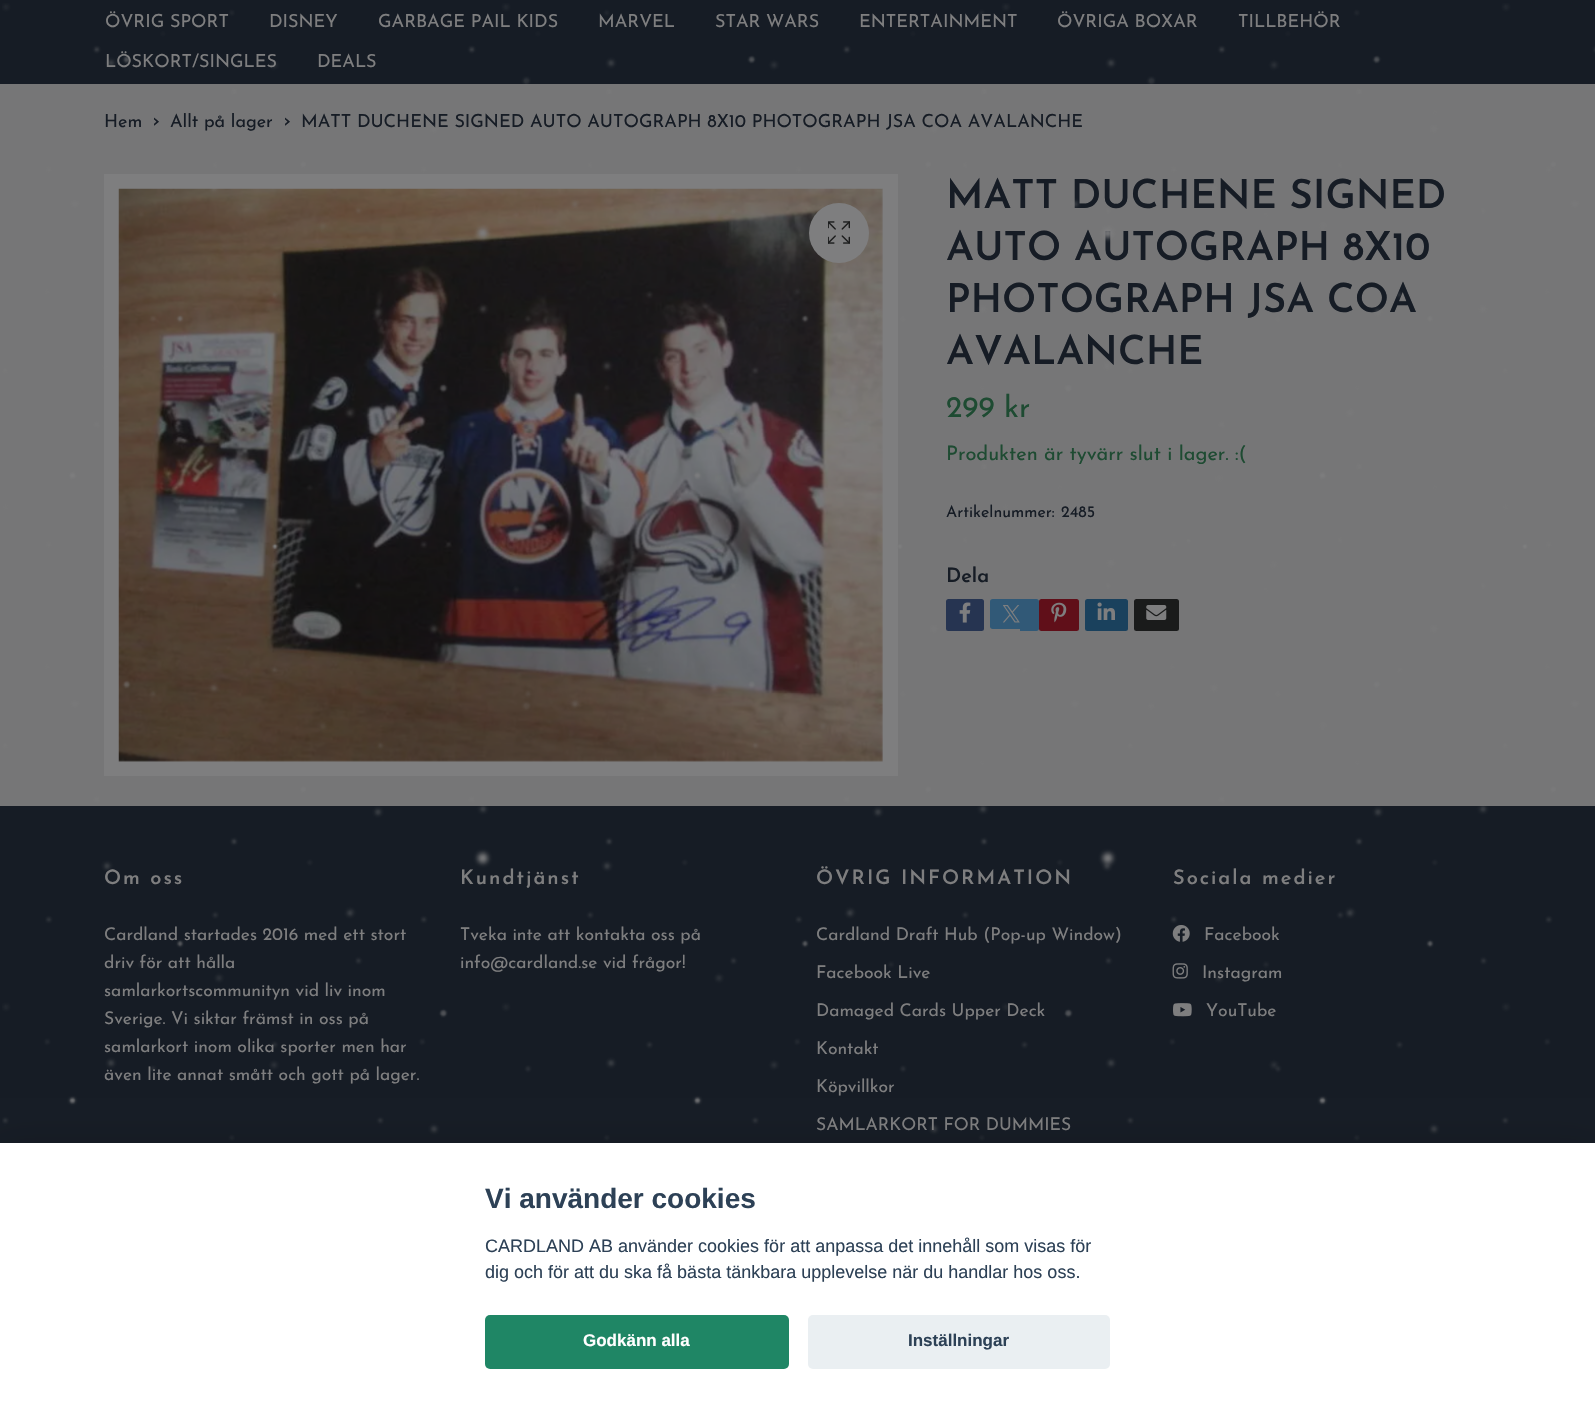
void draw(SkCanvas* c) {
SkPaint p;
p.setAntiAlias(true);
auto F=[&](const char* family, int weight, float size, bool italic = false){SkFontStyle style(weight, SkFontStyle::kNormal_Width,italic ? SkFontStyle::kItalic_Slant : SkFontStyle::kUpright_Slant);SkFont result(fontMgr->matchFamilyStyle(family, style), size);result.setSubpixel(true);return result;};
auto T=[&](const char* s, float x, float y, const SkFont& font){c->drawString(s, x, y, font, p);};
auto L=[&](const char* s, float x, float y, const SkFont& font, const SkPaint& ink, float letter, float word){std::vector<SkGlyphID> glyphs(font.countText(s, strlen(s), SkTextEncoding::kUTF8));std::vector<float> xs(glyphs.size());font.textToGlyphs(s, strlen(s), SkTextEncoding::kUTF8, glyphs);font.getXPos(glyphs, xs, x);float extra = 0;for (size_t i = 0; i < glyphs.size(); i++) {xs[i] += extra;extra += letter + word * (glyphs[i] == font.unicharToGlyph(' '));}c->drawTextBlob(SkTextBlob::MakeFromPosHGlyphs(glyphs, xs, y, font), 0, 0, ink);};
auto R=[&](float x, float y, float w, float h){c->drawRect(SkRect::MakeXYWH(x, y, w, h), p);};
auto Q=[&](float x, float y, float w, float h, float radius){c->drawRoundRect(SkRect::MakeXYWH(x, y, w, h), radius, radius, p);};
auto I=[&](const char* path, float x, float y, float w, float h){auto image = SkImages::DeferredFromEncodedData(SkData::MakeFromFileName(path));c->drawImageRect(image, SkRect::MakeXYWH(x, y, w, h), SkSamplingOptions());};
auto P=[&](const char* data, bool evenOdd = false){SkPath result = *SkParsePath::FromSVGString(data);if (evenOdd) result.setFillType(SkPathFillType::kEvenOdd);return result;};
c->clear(0xff767677);
p.setColor(0xff161c25);
R(0,0,1595,84);
auto f1 = F("Josefin Sans",400,18);
p.setColor(0xff7e7e7f);
T("ÖVRIG SPORT",105,27,f1);
T("DISNEY",269,27,f1);
T("GARBAGE PAIL KIDS",378,27,f1);
T("MARVEL",598,27,f1);
T("STAR WARS",715,27,f1);
T("ENTERTAINMENT",859,27,f1);
T("ÖVRIGA BOXAR",1057,27,f1);
T("TILLBEHÖR",1238,27,f1);
T("LÖSKORT/SINGLES",105,67,f1);
T("DEALS",317,67,f1);
p.setColor(0xff161c25);
T("Hem",104,127,f1);
auto f2 = F("Josefin Sans",400,22);
T("›",152,127,f2);
T("Allt på lager",170,127,f1);
T("›",283,127,f2);
T("MATT DUCHENE SIGNED AUTO AUTOGRAPH 8X10 PHOTOGRAPH JSA COA AVALANCHE",301,127,f1);
p.setColor(0xff7e7e7f);
R(104,174,794,602);
I("2.png",118,188,765,574);
c->drawCircle(839,233,30,p);
I("3.png",828,221,22,23);
auto f3 = F("Josefin Sans",600,40);
p.setColor(0xff161c25);
T("MATT DUCHENE SIGNED",946,208,f3);
T("AUTO AUTOGRAPH 8X10",946,260,f3);
T("PHOTOGRAPH JSA COA",946,312,f3);
T("AVALANCHE",946,364,f3);
auto f4 = F("Josefin Sans",400,30);
p.setColor(0xff1e4b32);
T("299 kr",946,417,f4);
auto f5 = F("Josefin Sans",400,20);
T("Produkten är tyvärr slut i lager. :(",946,460,f5);
auto f6 = F("Josefin Sans",400,16);
p.setColor(0xff161c25);
T("Artikelnummer:",946,517,f6);
T("2485",1061,517,f6);
auto f7 = F("Josefin Sans",600,20);
T("Dela",946,582,f7);
p.setColor(0xff263451);
Q(946,599,38,32,2.5);
I("4.png",959,602,12,21);
p.setColor(0xff315977);
c->drawPath(P("M992.5 599h27.5v30h-27.5c-1.5 0-2.5-1-2.5-2.5v-25c0-1.5 1-2.5 2.5-2.5z"),p);
c->drawPath(P("M1020 599h16.5c1.5 0 2.5 1 2.5 2.5v27c0 1.5-1 2.5-2.5 2.5h-16.5z"),p);
p.setColor(0xff600f19);
Q(1039,599,40,32,2.5);
I("5.png",1051,602,16,21);
p.setColor(0xff1a415d);
Q(1085,599,43,32,2.5);
I("6.png",1097,602,18,18);
p.setColor(0xff1a1b1b);
Q(1134,599,45,32,2.5);
I("7.png",1146,605,21,15);
I("8.png",1003,605,17,18);
p.setColor(0xff161c25);
R(0,806,1595,337);
p.setColor(0xff7e7e7f);
L("Om oss",104,884,f7,p,2,0);
auto f8 = F("Josefin Sans",400,17.5);
T("Cardland startades 2016 med ett stort",104,940,f8);
T("driv för att hålla",104,968,f8);
T("samlarkortscommunityn vid liv inom",104,996,f8);
T("Sverige. Vi siktar främst in oss på",104,1024,f8);
T("samlarkort inom olika sporter men har",104,1052,f8);
T("även lite annat smått och gott på lager.",104,1080,f8);
L("Kundtjänst",460,884,f7,p,2,0);
T("Tveka inte att kontakta oss på",460,940,f8);
T("info@cardland.se vid frågor!",460,968,f8);
L("ÖVRIG INFORMATION",816,884,f7,p,2,0);
T("Cardland Draft Hub (Pop-up Window)",816,940,f8);
T("Facebook Live",816,978,f8);
T("Damaged Cards Upper Deck",816,1016,f8);
T("Kontakt",816,1054,f8);
T("Köpvillkor",816,1092,f8);
T("SAMLARKORT FOR DUMMIES",816,1130,f8);
L("Sociala medier",1173,884,f7,p,2,0);
I("9.png",1172,925,18,17);
T("Facebook",1204,940,f8);
I("10.png",1172,963,16,16);
T("Instagram",1202,978,f8);
I("11.png",1173,1003,19,14);
T("YouTube",1206,1016,f8);
I("1.png",2,3,1593,1138);
p.setColor(0x47020203);
p.setMaskFilter(SkMaskFilter::MakeBlur(kNormal_SkBlurStyle, 19));
c->drawRect(SkRect::MakeXYWH(0,1155,1595,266),p);
p.setMaskFilter(nullptr);
p.setColor(0xffffffff);
R(0,1143,1595,265);
auto f9 = F("Liberation Sans",700,28);
p.setColor(0xff2d4156);
T("Vi använder cookies",485,1208,f9);
auto f10 = F("Liberation Sans",400,18);
T("CARDLAND AB använder cookies för att anpassa det innehåll som visas för",485,1252,f10);
T("dig och för att du ska få bästa tänkbara upplevelse när du handlar hos oss.",485,1278,f10);
p.setColor(0xff1f8665);
Q(485,1315,304,54,5);
auto f11 = F("Liberation Sans",700,17);
p.setColor(0xffffffff);
T("Godkänn alla",583,1346,f11);
p.setColor(0xffeaeff2);
Q(808,1315,302,54,5);
p.setColor(0xff2d4156);
T("Inställningar",908,1346,f11);
}
